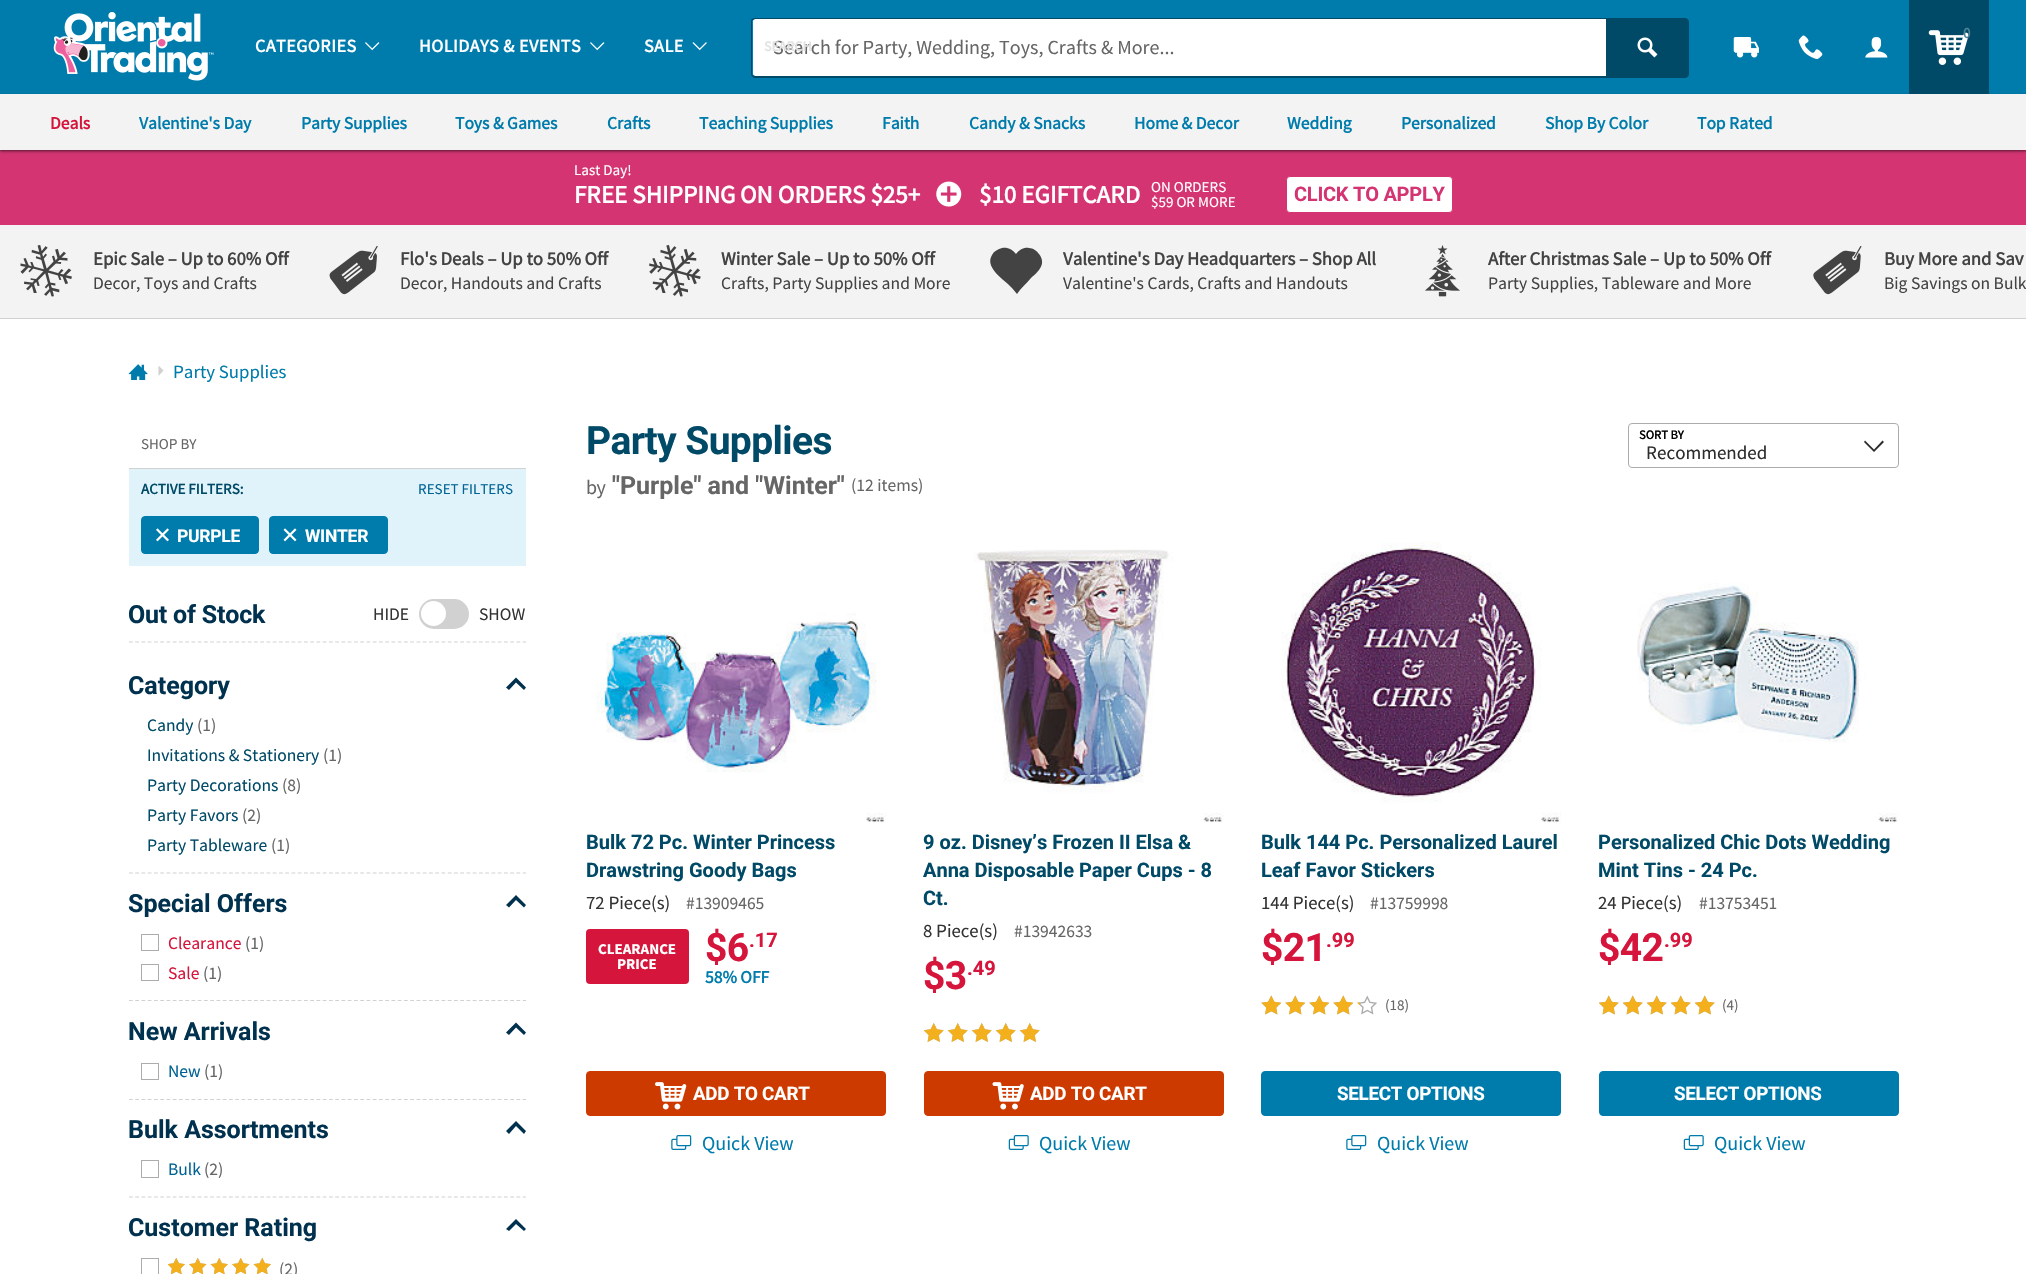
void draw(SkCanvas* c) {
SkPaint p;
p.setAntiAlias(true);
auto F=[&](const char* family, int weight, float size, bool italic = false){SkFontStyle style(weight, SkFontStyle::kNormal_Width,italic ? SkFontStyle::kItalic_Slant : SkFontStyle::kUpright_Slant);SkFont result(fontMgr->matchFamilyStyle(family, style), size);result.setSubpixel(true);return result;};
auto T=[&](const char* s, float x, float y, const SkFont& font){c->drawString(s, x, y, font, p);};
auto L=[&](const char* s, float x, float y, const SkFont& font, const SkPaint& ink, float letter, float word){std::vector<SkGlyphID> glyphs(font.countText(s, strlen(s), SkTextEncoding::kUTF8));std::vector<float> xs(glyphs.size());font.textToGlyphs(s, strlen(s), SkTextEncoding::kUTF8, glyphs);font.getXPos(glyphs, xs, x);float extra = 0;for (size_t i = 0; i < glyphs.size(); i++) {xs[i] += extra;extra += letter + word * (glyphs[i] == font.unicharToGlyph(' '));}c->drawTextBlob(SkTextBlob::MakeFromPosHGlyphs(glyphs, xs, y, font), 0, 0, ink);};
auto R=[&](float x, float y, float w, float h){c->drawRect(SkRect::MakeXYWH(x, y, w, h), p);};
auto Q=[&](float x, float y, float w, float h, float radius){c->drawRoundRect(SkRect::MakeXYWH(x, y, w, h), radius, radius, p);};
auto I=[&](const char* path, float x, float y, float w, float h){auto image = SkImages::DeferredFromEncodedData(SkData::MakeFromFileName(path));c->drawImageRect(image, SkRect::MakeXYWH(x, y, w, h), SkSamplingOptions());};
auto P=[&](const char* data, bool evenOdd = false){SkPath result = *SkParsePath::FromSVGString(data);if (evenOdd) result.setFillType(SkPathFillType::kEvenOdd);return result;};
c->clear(0xffffffff);
p.setColor(0xffd43572);
R(0,150,2026,75);
p.setColor(0x3d000000);
p.setMaskFilter(SkMaskFilter::MakeBlur(kNormal_SkBlurStyle, 1));
c->drawRect(SkRect::MakeXYWH(0,1,2026,150),p);
p.setMaskFilter(nullptr);
p.setColor(0x1f000000);
p.setMaskFilter(SkMaskFilter::MakeBlur(kNormal_SkBlurStyle, 2));
c->drawRect(SkRect::MakeXYWH(0,1,2026,150),p);
p.setMaskFilter(nullptr);
p.setColor(0xff007cac);
R(0,0,2026,94);
I("1.png",53,12,161,69);
p.setColor(0x3d000000);
p.setMaskFilter(SkMaskFilter::MakeBlur(kNormal_SkBlurStyle, 1));
c->drawRect(SkRect::MakeXYWH(0,95,2026,56),p);
p.setMaskFilter(nullptr);
p.setColor(0x1f000000);
p.setMaskFilter(SkMaskFilter::MakeBlur(kNormal_SkBlurStyle, 2));
c->drawRect(SkRect::MakeXYWH(0,95,2026,56),p);
p.setMaskFilter(nullptr);
p.setColor(0xff004a67);
R(1909,0,80,94);
I("2.png",1928,30,41,35);
auto f1 = F("Source Sans Pro",700,15);
p.setColor(0xff4f8296);
T("0",1963,38,f1);
auto f2 = F("Source Sans Pro",700,18);
p.setColor(0xffffffff);
L("CATEGORIES",255,52,f2,p,.5,0);
I("3.png",365,42,15,9);
L("HOLIDAYS & EVENTS",419,52,f2,p,.5,0);
I("3.png",590,42,15,9);
L("SALE",644,52,f2,p,.5,0);
I("4.png",692,42,15,9);
c->drawPath(P("M755.5 19h852.5v57h-852.5c-1.5 0-2.5-1-2.5-2.5v-52c0-1.5 1-2.5 2.5-2.5z"),p);
p.setColor(0xff004a67);
c->drawPath(P("M755 18h853v60h-853c-2 0-4-2-4-4v-53c0-2 2-3 4-3zm0 1h853v57h-853c-1 0-3-1-3-2v-53c0-1 2-2 3-2z",true),p);
auto f3 = F("Source Sans Pro",400,20);
p.setColor(0xff666666);
T("Search for Party, Wedding, Toys, Crafts & More...",773,54,f3);
auto f4 = F("Source Sans Pro",700,14);
p.setColor(0xffe2e2e2);
T("SEARCH",764,51,f4);
p.setColor(0xff004a67);
c->drawPath(P("M1606.5 18.5h78.5c2 0 3.5 1.5 3.5 3.5v52c0 2-1.5 3.5-3.5 3.5h-78.5z"),p);
p.setStroke(true);
p.setStrokeWidth(1);
c->drawPath(P("M1606.5 18.5h78.5c2 0 3.5 1.5 3.5 3.5v52c0 2-1.5 3.5-3.5 3.5h-78.5z"),p);
I("5.png",1637,37,21,21);
I("6.png",1733,37,26,21);
I("7.png",1798,35,25,25);
I("8.png",1865,37,23,21);
p.setStroke(false);
p.setColor(0xfff3f3f3);
R(0,94,2026,56);
auto f5 = F("Source Sans Pro",700,17.5);
p.setColor(0xffd5153b);
T("Deals",50,129,f5);
p.setColor(0xff007cac);
T("Valentine's Day",139,129,f5);
T("Party Supplies",301,129,f5);
T("Toys & Games",455,129,f5);
T("Crafts",607,129,f5);
T("Teaching Supplies",699,129,f5);
T("Faith",882,129,f5);
T("Candy & Snacks",969,129,f5);
T("Home & Decor",1134,129,f5);
T("Wedding",1287,129,f5);
T("Personalized",1401,129,f5);
T("Shop By Color",1545,129,f5);
T("Top Rated",1697,129,f5);
auto f6 = F("Source Sans Pro",400,15);
p.setColor(0xffffffff);
T("Last Day!",574,175,f6);
auto f7 = F("Source Sans Pro",700,25);
T("FREE SHIPPING",574,203,f7);
T("ON ORDERS $25+",740,203,f7);
I("9.png",936,181,26,26);
T("$10 EGIFTCARD",979,203,f7);
T("ON ORDERS",1151,192,f6);
T("$59 OR MORE",1151,207,f6);
c->drawRoundRect(SkRect::MakeXYWH(1286.5,176.5,166,36),3.5,3.5,p);
p.setStroke(true);
p.setColor(0xffd43572);
c->drawRoundRect(SkRect::MakeXYWH(1286.5,176.5,166,36),3.5,3.5,p);
auto f8 = F("Roboto",700,20);
p.setStroke(false);
L("CLICK TO APPLY",1294,201,f8,p,-.25,0);
p.setColor(0xfff3f3f3);
R(0,225,2026,93);
p.setColor(0xffd1d1d1);
R(0,318,2026,1);
I("10.png",20,245,52,52);
auto f9 = F("Source Sans Pro",700,18.75);
p.setColor(0xff434343);
T("Epic Sale – Up to 60% Off",93,265,f9);
auto f10 = F("Source Sans Pro",400,17.5);
T("Decor, Toys and Crafts",93,289,f10);
I("11.png",329,245,49,50);
T("Flo's Deals – Up to 50% Off",400,265,f9);
T("Decor, Handouts and Crafts",400,289,f10);
I("12.png",649,245,52,52);
T("Winter Sale – Up to 50% Off",721,265,f9);
T("Crafts, Party Supplies and More",721,289,f10);
c->drawPath(P("M1017 294l-5-6c-7-8-28-20-20-33c2-4 6-6 10-7c6-1 11 2 14 6c3-4 8-7 13-6c4 0 8 3 10 6c8 10-1 18-8 24c-5 6-10 10-14 16z"),p);
T("Valentine's Day Headquarters – Shop All",1063,265,f9);
T("Valentine's Cards, Crafts and Handouts",1063,289,f10);
I("13.png",1425,245,35,52);
T("After Christmas Sale – Up to 50% Off",1488,265,f9);
T("Party Supplies, Tableware and More",1488,289,f10);
I("14.png",1813,245,49,50);
T("Buy More and Sav",1884,265,f9);
T("Big Savings on Bulk",1884,289,f10);
I("15.png",128,364,20,16);
p.setColor(0xffd1d1d1);
c->drawPath(P("M158.5 376l5-5.5l-5-5z"),p);
auto f11 = F("Source Sans Pro",400,18.75);
p.setColor(0xff007cac);
T("Party Supplies",173,378,f11);
p.setColor(0xffd1d1d1);
R(129,468,397,1);
p.setColor(0xff666666);
T("SHOP BY",141,449,f6);
p.setColor(0xffe0f3fb);
R(129,469,397,97);
p.setColor(0xff004a67);
T("ACTIVE FILTERS:",141,494,f1);
p.setColor(0xff006393);
T("RESET FILTERS",418,494,f6);
p.setColor(0xff007cac);
c->drawRoundRect(SkRect::MakeXYWH(141.5,516.5,117,37),3.5,3.5,p);
p.setStroke(true);
c->drawRoundRect(SkRect::MakeXYWH(141.5,516.5,117,37),3.5,3.5,p);
I("16.png",156,528,13,14);
auto f12 = F("Roboto",700,17.5);
p.setStroke(false);
p.setColor(0xffffffff);
L("PURPLE",177,542,f12,p,-.25,0);
p.setColor(0xff007cac);
c->drawRoundRect(SkRect::MakeXYWH(269.5,516.5,118,37),3.5,3.5,p);
p.setStroke(true);
c->drawRoundRect(SkRect::MakeXYWH(269.5,516.5,118,37),3.5,3.5,p);
I("17.png",283,528,14,14);
p.setStroke(false);
p.setColor(0xffffffff);
L("WINTER",305,542,f12,p,-.25,0);
p.setStroke(true);
p.setStrokeWidth(1.2);
p.setColor(0xffd1d1d1);
p.setPathEffect(SkDashPathEffect::Make({{3.75f,2.5f}}, 0));
c->drawPath(P("M129 642h397"),p);
p.setPathEffect(nullptr);
auto f13 = F("Roboto",700,25);
p.setStroke(false);
p.setColor(0xff00314e);
L("Out of Stock",128,623,f13,p,-.2,0);
p.setColor(0xff333333);
T("HIDE",373,620,f10);
p.setColor(0xffd1d1d1);
Q(419,599,50,30,15);
p.setColor(0xffffffff);
c->drawCircle(433.5,613.5,12.5,p);
p.setColor(0xff333333);
T("SHOW",479,620,f10);
p.setStroke(true);
p.setColor(0xffd1d1d1);
p.setPathEffect(SkDashPathEffect::Make({{3.75f,2.5f}}, 0));
c->drawPath(P("M129 873h397"),p);
p.setPathEffect(nullptr);
p.setStroke(false);
p.setColor(0xff00314e);
T("Category",128,694,f13);
c->drawPath(P("M506 687.5l3 2.5l7-7.5l8 7.5l2-2.5l-10-10z"),p);
p.setColor(0xff004a67);
T("Candy",147,731,f10);
p.setColor(0xff666666);
T("(1)",197,731,f10);
p.setColor(0xff004a67);
T("Invitations & Stationery",147,761,f10);
p.setColor(0xff666666);
T("(1)",323,761,f10);
p.setColor(0xff004a67);
T("Party Decorations",147,791,f10);
p.setColor(0xff666666);
T("(8)",282,791,f10);
p.setColor(0xff004a67);
T("Party Favors",147,821,f10);
p.setColor(0xff666666);
T("(2)",242,821,f10);
p.setColor(0xff004a67);
T("Party Tableware",147,851,f10);
p.setColor(0xff666666);
T("(1)",271,851,f10);
p.setStroke(true);
p.setColor(0xffd1d1d1);
p.setPathEffect(SkDashPathEffect::Make({{3.75f,2.5f}}, 0));
c->drawPath(P("M129 1000.5h397"),p);
p.setPathEffect(nullptr);
p.setStroke(false);
p.setColor(0xff00314e);
T("Special Offers",128,912,f13);
c->drawPath(P("M506 905l3 2.5l7-7.5l8 7.5l2-2.5l-10-10z"),p);
p.setStroke(true);
p.setStrokeWidth(1);
p.setColor(0xffacacac);
c->drawRect(SkRect::MakeXYWH(141.5,934.5,17,16),p);
p.setStroke(false);
p.setColor(0xffd5153b);
T("Clearance",168,949,f10);
p.setColor(0xff666666);
T("(1)",245,949,f10);
p.setStroke(true);
p.setColor(0xffacacac);
c->drawRect(SkRect::MakeXYWH(141.5,964.5,17,16),p);
p.setStroke(false);
p.setColor(0xffd5153b);
T("Sale",168,979,f10);
p.setColor(0xff666666);
T("(1)",203,979,f10);
p.setStroke(true);
p.setStrokeWidth(1.2);
p.setColor(0xffd1d1d1);
p.setPathEffect(SkDashPathEffect::Make({{3.75f,2.5f}}, 0));
c->drawPath(P("M129 1099.5h397"),p);
p.setPathEffect(nullptr);
p.setStroke(false);
p.setColor(0xff00314e);
T("New Arrivals",128,1040,f13);
c->drawPath(P("M506 1032.5l3 2.5l7-7.5l8 7.5l2-2.5l-10-10z"),p);
p.setStroke(true);
p.setStrokeWidth(1);
p.setColor(0xffacacac);
c->drawRect(SkRect::MakeXYWH(141.5,1063.5,17,16),p);
p.setStroke(false);
p.setColor(0xff006393);
T("New",168,1077,f10);
p.setColor(0xff666666);
T("(1)",204,1077,f10);
p.setStroke(true);
p.setStrokeWidth(1.2);
p.setColor(0xffd1d1d1);
p.setPathEffect(SkDashPathEffect::Make({{3.75f,2.5f}}, 0));
c->drawPath(P("M129 1197h397"),p);
p.setPathEffect(nullptr);
p.setStroke(false);
p.setColor(0xff00314e);
T("Bulk Assortments",128,1138,f13);
c->drawPath(P("M506 1131l3 3l7-8l8 8l2-3l-10-10z"),p);
p.setStroke(true);
p.setStrokeWidth(1);
p.setColor(0xffacacac);
c->drawRect(SkRect::MakeXYWH(141.5,1160.5,17,17),p);
p.setStroke(false);
p.setColor(0xff006393);
T("Bulk",168,1175,f10);
p.setColor(0xff666666);
T("(2)",204,1175,f10);
p.setColor(0xff00314e);
T("Customer Rating",128,1236,f13);
c->drawPath(P("M506 1229l3 2l7-7l8 7l2-2l-10-10z"),p);
p.setStroke(true);
p.setColor(0xffacacac);
c->drawRect(SkRect::MakeXYWH(141.5,1258.5,17,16),p);
I("18.png",168,1258,103,16);
I("19.png",168,1258,103,16);
p.setStroke(false);
p.setColor(0xff666666);
T("(2)",279,1275,f10);
auto f14 = F("Roboto",700,39);
p.setColor(0xff004a67);
L("Party Supplies",586,454,f14,p,-.6,0);
p.setColor(0xff666666);
L("by",586,494,f3,p,-.6,0);
T("\"Purple\" and \"Winter\"",612,494,f13);
T("(12 items)",851,491,f10);
p.setStroke(true);
p.setColor(0xffacacac);
c->drawRoundRect(SkRect::MakeXYWH(1628.5,423.5,270,44),3.5,3.5,p);
auto f15 = F("Source Sans Pro",700,12.5);
p.setStroke(false);
p.setColor(0xff000000);
T("SORT BY",1639,439,f15);
auto f16 = F("Source Sans Pro",400,19);
p.setColor(0xff2c2c2c);
T("Recommended",1646,459,f16);
c->drawPath(P("M1884 442l-1.5-1.5l-8.5 9l-9-9l-1 1.5l10 10z"),p);
I("20.png",596,613,290,210);
p.setColor(0xff004a67);
T("Bulk 72 Pc. Winter Princess",586,849,f8);
T("Drawstring Goody Bags",586,877,f8);
p.setColor(0xff333333);
T("72 Piece(s)",586,909,f11);
p.setColor(0xff666666);
T("#13909465",686,909,f10);
p.setColor(0xffd5153b);
Q(586,929,103,55,4);
auto f17 = F("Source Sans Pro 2",700,15);
p.setColor(0xffffffff);
T("CLEARANCE",598,954,f17);
T("PRICE",617,969,f17);
p.setColor(0xffd5153b);
L("$6",705,961,f14,p,-.6,0);
T(".17",749,947,f8);
p.setColor(0xff007cac);
T("58% OFF",705,983,f5);
p.setColor(0xffcd3a00);
c->drawRoundRect(SkRect::MakeXYWH(586.5,1071.5,299,44),3.5,3.5,p);
p.setStroke(true);
c->drawRoundRect(SkRect::MakeXYWH(586.5,1071.5,299,44),3.5,3.5,p);
I("21.png",655,1082,32,28);
auto f18 = F("Roboto",700,18.75);
p.setStroke(false);
p.setColor(0xffffffff);
L("ADD TO CART",693,1100,f18,p,-.25,0);
I("22.png",671,1135,21,15);
p.setColor(0xff007cac);
T("Quick View",702,1150,f3);
I("23.png",974,549,250,274);
p.setColor(0xff004a67);
T("9 oz. Disney’s Frozen II Elsa &",923,849,f8);
T("Anna Disposable Paper Cups - 8",923,877,f8);
T("Ct.",923,905,f8);
p.setColor(0xff333333);
T("8 Piece(s)",923,937,f11);
p.setColor(0xff666666);
T("#13942633",1014,937,f10);
p.setColor(0xffd5153b);
L("$3",923,989,f14,p,-.6,0);
T(".49",967,975,f8);
I("24.png",924,1023,116,19);
I("25.png",924,1023,116,19);
p.setColor(0xffcd3a00);
c->drawRoundRect(SkRect::MakeXYWH(924.5,1071.5,299,44),3.5,3.5,p);
p.setStroke(true);
c->drawRoundRect(SkRect::MakeXYWH(924.5,1071.5,299,44),3.5,3.5,p);
I("26.png",992,1082,32,28);
p.setStroke(false);
p.setColor(0xffffffff);
L("ADD TO CART",1030,1100,f18,p,-.25,0);
I("27.png",1008,1135,21,15);
p.setColor(0xff007cac);
T("Quick View",1039,1150,f3);
I("28.png",1281,542,280,281);
p.setColor(0xff004a67);
T("Bulk 144 Pc. Personalized Laurel",1261,849,f8);
T("Leaf Favor Stickers",1261,877,f8);
p.setColor(0xff333333);
T("144 Piece(s)",1261,909,f11);
p.setColor(0xff666666);
T("#13759998",1370,909,f10);
p.setColor(0xffd5153b);
L("$21",1261,961,f14,p,-.6,0);
T(".99",1326,947,f8);
I("29.png",1261,995,116,20);
I("30.png",1261,995,99,20);
p.setColor(0xff666666);
T("(18)",1385,1010,f6);
p.setColor(0xff007cac);
c->drawRoundRect(SkRect::MakeXYWH(1261.5,1071.5,299,44),3.5,3.5,p);
p.setStroke(true);
c->drawRoundRect(SkRect::MakeXYWH(1261.5,1071.5,299,44),3.5,3.5,p);
p.setStroke(false);
p.setColor(0xffffffff);
L("SELECT OPTIONS",1337,1100,f18,p,-.25,0);
I("22.png",1346,1135,21,15);
p.setColor(0xff007cac);
T("Quick View",1377,1150,f3);
I("31.png",1637,583,262,240);
p.setColor(0xff004a67);
T("Personalized Chic Dots Wedding",1598,849,f8);
T("Mint Tins - 24 Pc.",1598,877,f8);
p.setColor(0xff333333);
T("24 Piece(s)",1598,909,f11);
p.setColor(0xff666666);
T("#13753451",1699,909,f10);
p.setColor(0xffd5153b);
L("$42",1598,961,f14,p,-.6,0);
T(".99",1664,947,f8);
I("32.png",1599,995,116,20);
I("33.png",1599,995,116,20);
p.setColor(0xff666666);
T("(4)",1722,1010,f6);
p.setColor(0xff007cac);
c->drawRoundRect(SkRect::MakeXYWH(1599.5,1071.5,299,44),3.5,3.5,p);
p.setStroke(true);
c->drawRoundRect(SkRect::MakeXYWH(1599.5,1071.5,299,44),3.5,3.5,p);
p.setStroke(false);
p.setColor(0xffffffff);
L("SELECT OPTIONS",1674,1100,f18,p,-.25,0);
I("27.png",1683,1135,21,15);
p.setColor(0xff007cac);
T("Quick View",1714,1150,f3);
}
